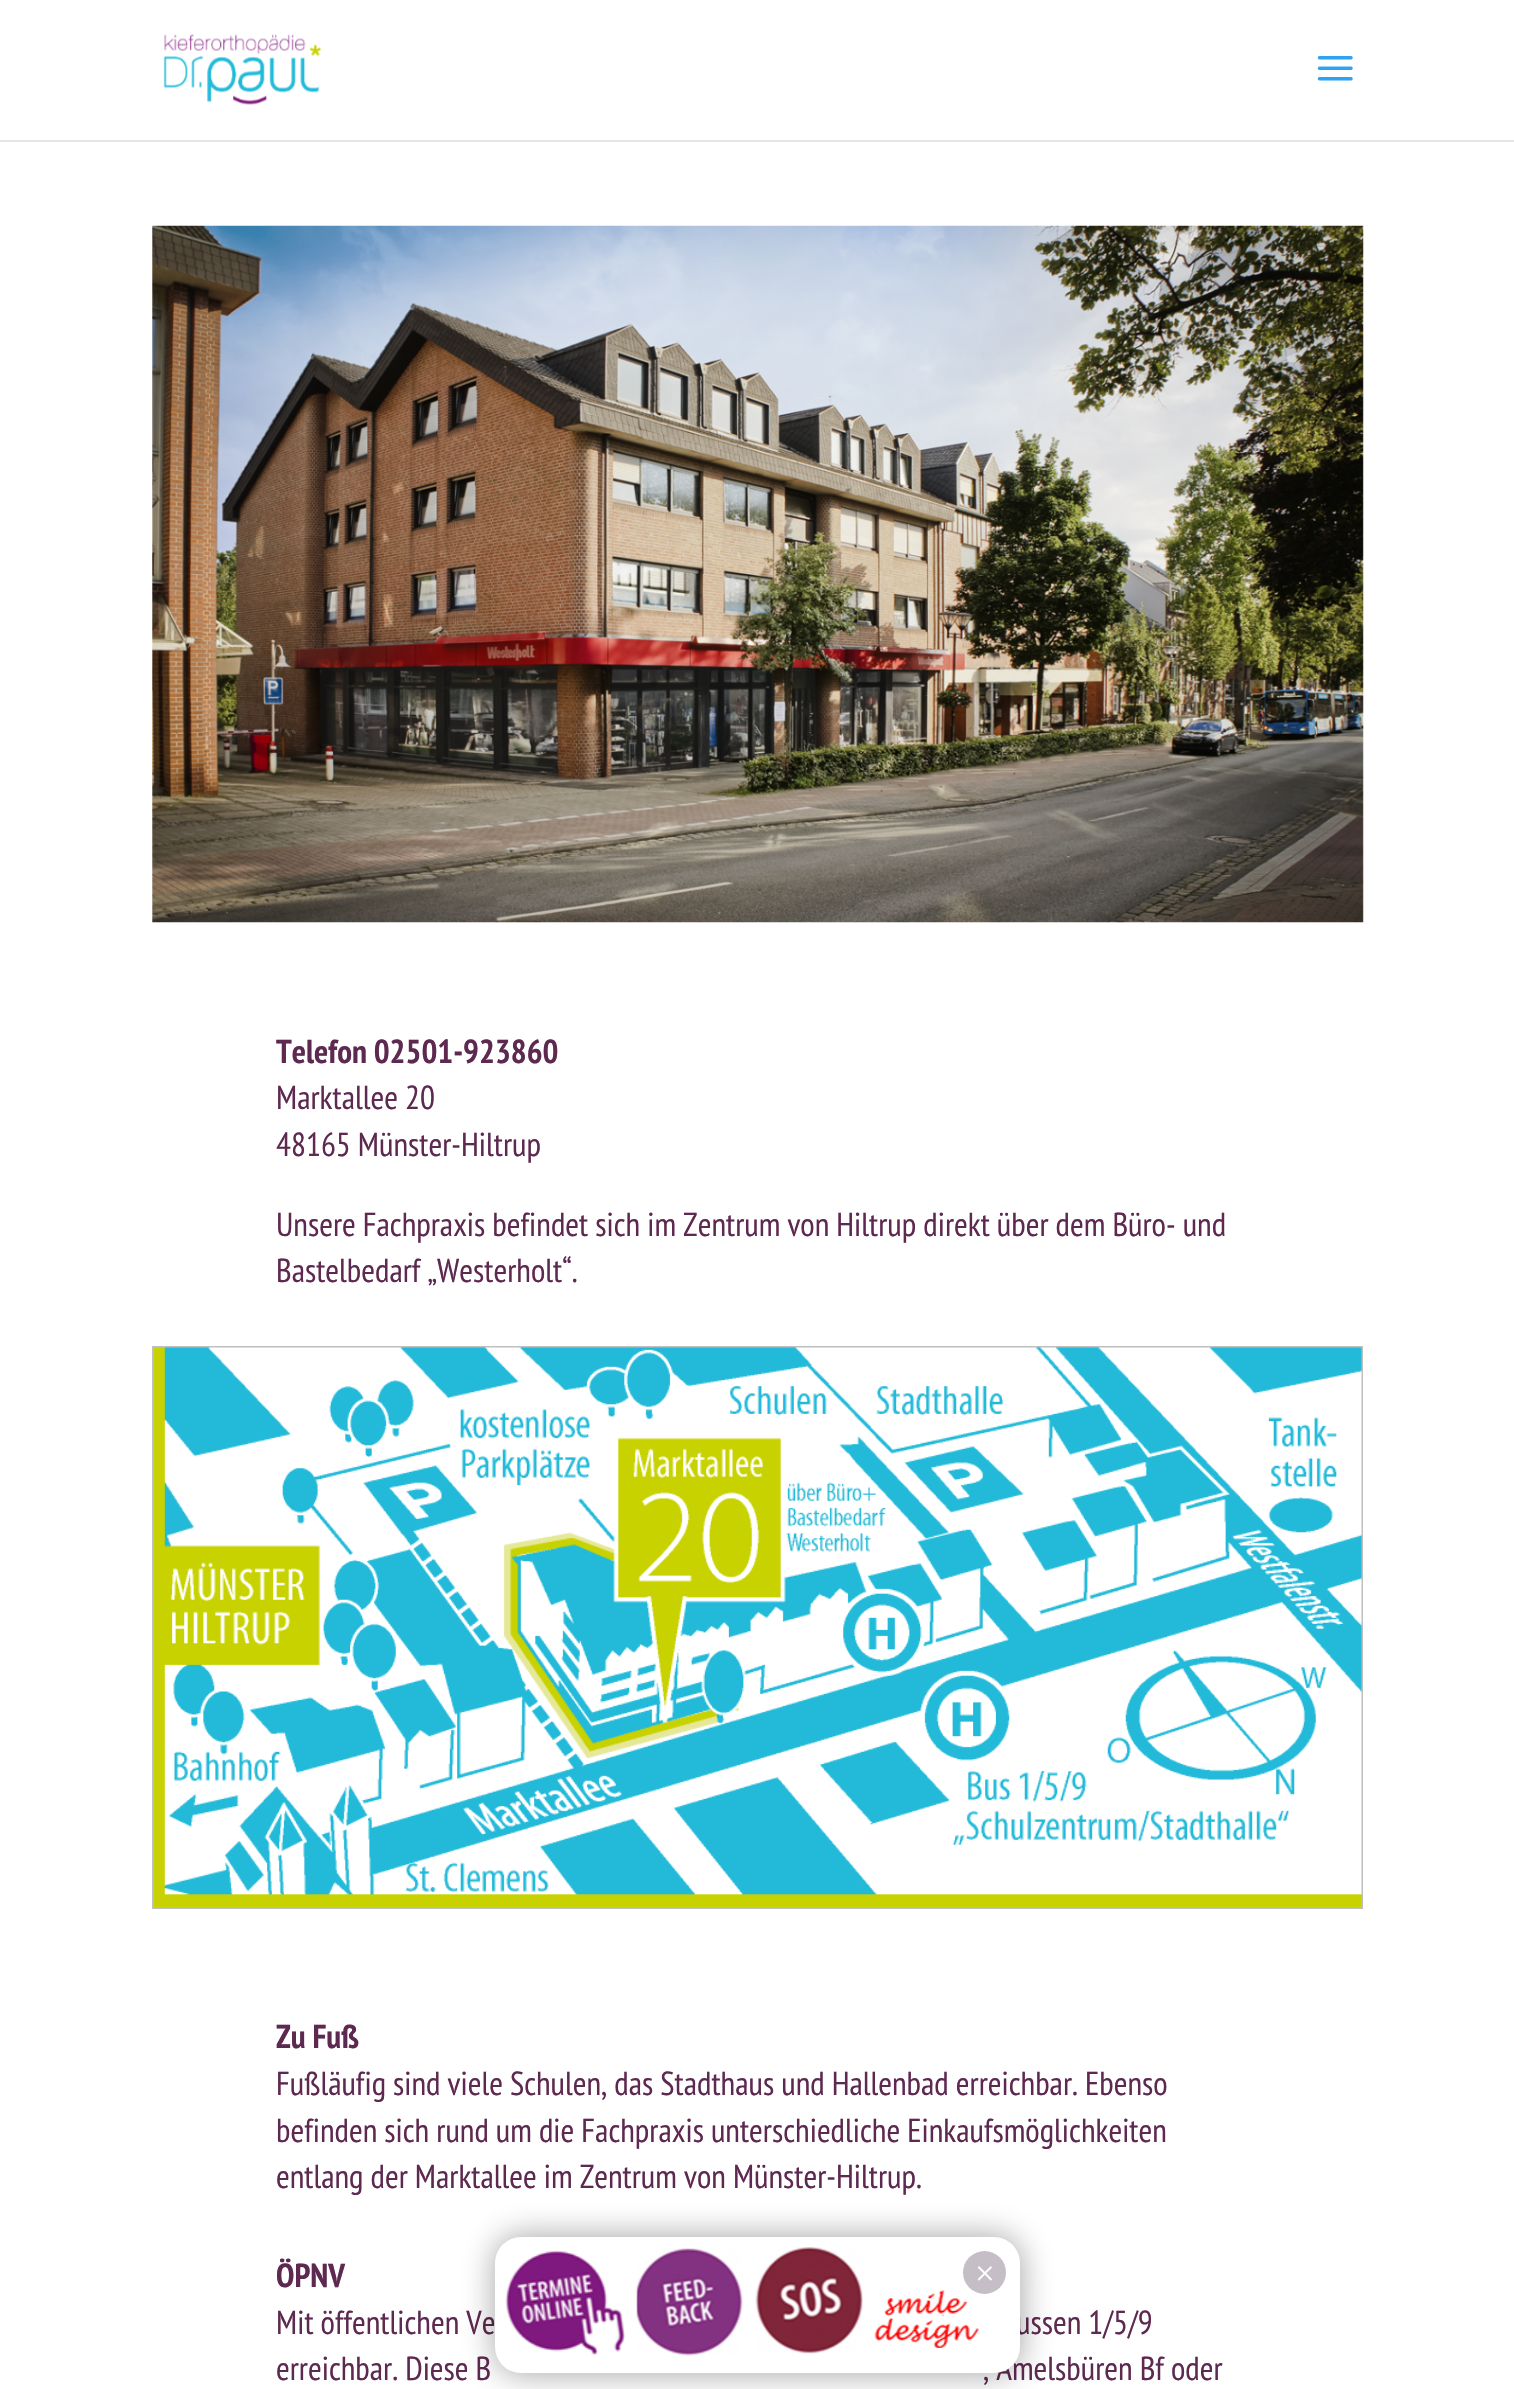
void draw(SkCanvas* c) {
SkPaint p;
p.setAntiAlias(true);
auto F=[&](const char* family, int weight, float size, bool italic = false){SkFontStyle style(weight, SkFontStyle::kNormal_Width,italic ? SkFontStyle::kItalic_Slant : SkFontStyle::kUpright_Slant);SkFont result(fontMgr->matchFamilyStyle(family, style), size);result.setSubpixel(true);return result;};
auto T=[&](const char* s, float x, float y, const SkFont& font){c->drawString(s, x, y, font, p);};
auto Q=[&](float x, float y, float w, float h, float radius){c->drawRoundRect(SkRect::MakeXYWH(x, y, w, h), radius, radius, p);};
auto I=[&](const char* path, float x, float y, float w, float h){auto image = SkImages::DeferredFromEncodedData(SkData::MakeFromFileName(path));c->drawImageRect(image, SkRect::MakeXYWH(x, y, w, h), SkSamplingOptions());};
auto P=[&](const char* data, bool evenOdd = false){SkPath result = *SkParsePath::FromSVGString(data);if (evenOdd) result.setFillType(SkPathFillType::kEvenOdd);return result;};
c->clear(0xffffffff);
p.setColor(0xffe6e6e6);
c->drawPath(P("M0 140v2h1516v-140v138z"),p);
I("1.png",163,34,159,71);
I("2.png",1317,56,36,25);
I("3.png",152,225,1212,698);
auto f1 = F("PT Sans Narrow",700,33.25);
p.setColor(0xff5e2950);
T("Telefon 02501-923860",276,1063,f1);
auto f2 = F("PT Sans Narrow",400,33.25);
T("Marktallee 20",276,1109,f2);
T("48165 Münster-Hiltrup",276,1156,f2);
T("Unsere Fachpraxis befindet sich im Zentrum von Hiltrup direkt über dem Büro- und",276,1236,f2);
T("Bastelbedarf „Westerholt“.",276,1282,f2);
p.setStroke(true);
p.setStrokeWidth(2);
p.setColor(0xffbfbfbf);
c->drawRect(SkRect::MakeXYWH(153,1347,1209,561),p);
I("4.png",154,1347,1208,561);
p.setStroke(false);
p.setColor(0xff5e2950);
T("Zu Fuß",276,2048,f1);
T("Fußläufig sind viele Schulen, das Stadthaus und Hallenbad erreichbar. Ebenso",276,2095,f2);
T("befinden sich rund um die Fachpraxis unterschiedliche Einkaufsmöglichkeiten",276,2142,f2);
T("entlang der Marktallee im Zentrum von Münster-Hiltrup.",276,2188,f2);
T("ÖPNV",276,2287,f1);
T("Mit öffentlichen Ve",276,2334,f2);
T("ussen 1/5/9",1016,2334,f2);
T("erreichbar. Diese B",276,2380,f2);
T(", Amelsbüren Bf oder",983,2380,f2);
p.setColor(0x57020202);
p.setMaskFilter(SkMaskFilter::MakeBlur(kNormal_SkBlurStyle, 16));
c->drawRoundRect(SkRect::MakeXYWH(494,2235,528,140),28,28,p);
p.setMaskFilter(nullptr);
p.setColor(0xffffffff);
Q(495,2237,525,136,26);
I("5.png",505,2250,120,105);
I("6.png",636,2248,107,108);
I("7.png",755,2247,108,107);
I("8.png",874,2290,105,58);
p.setColor(0xffc5bec6);
c->drawCircle(984.5,2272.5,21.5,p);
auto f3 = F("Liberation Serif",400,35);
p.setColor(0xffffffff);
T("×",975,2285,f3);
}
